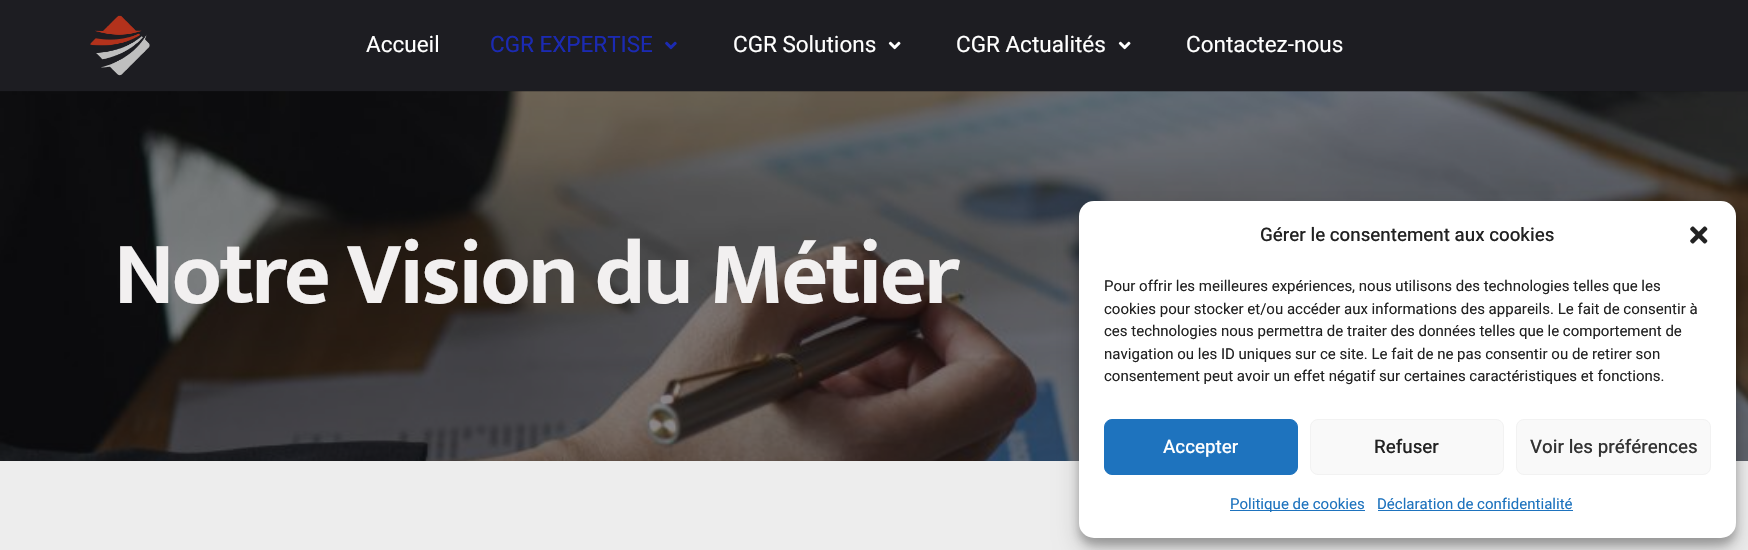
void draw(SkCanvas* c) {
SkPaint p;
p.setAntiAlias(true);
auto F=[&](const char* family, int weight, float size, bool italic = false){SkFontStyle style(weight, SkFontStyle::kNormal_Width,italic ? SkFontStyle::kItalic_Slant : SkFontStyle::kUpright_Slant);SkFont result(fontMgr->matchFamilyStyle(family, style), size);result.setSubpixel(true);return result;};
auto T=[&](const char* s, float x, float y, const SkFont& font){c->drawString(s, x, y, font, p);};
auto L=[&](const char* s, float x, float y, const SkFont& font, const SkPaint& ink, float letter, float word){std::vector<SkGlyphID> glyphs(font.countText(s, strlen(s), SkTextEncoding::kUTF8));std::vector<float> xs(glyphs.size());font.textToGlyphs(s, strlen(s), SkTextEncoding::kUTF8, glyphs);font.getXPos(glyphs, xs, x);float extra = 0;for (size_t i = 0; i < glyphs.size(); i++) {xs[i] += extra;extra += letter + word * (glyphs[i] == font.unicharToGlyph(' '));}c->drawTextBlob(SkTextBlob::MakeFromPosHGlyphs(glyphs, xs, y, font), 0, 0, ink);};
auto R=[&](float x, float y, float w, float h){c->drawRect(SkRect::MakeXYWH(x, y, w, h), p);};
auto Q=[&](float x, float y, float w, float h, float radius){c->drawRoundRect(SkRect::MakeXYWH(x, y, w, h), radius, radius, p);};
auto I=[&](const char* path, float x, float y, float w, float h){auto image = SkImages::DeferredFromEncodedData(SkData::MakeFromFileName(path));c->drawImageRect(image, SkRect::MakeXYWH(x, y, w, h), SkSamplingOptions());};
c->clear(0xff1d1d22);
I("1.png",90,15,60,61);
auto f1 = F("Heebo",400,22.5);
p.setColor(0xffffffff);
T("Accueil",366,52,f1);
p.setColor(0xff1b2ab3);
T("CGR EXPERTISE",490,52,f1);
I("2.png",665,41,12,9);
p.setColor(0xffffffff);
T("CGR Solutions",733,52,f1);
I("3.png",888,41,13,9);
T("CGR Actualités",956,52,f1);
I("3.png",1118,41,13,9);
T("Contactez-nous",1186,52,f1);
p.setColor(0xff141417);
R(0,91,1748,370);
I("4.png",0,91,1748,370);
auto f2 = F("Mukta",700,90);
p.setColor(0xfff2f0f0);
L("Notre Vision du Métier",114,303,f2,p,-2.5,0);
p.setColor(0xffededed);
R(0,461,1748,89);
p.setColor(0x3b000000);
p.setMaskFilter(SkMaskFilter::MakeBlur(kNormal_SkBlurStyle, 4));
c->drawRoundRect(SkRect::MakeXYWH(1079,209,657,336),15,15,p);
p.setMaskFilter(nullptr);
p.setColor(0x30000000);
p.setMaskFilter(SkMaskFilter::MakeBlur(kNormal_SkBlurStyle, 12.5));
c->drawRoundRect(SkRect::MakeXYWH(1079,214,657,336),15,15,p);
p.setMaskFilter(nullptr);
p.setColor(0xffffffff);
Q(1079,201,657,337,15);
auto f3 = F("Heebo",500,18.75);
p.setColor(0xff222222);
T("Gérer le consentement aux cookies",1260,241,f3);
I("5.png",1690,226,18,18);
auto f4 = F("Heebo",400,15);
T("Pour offrir les meilleures expériences, nous utilisons des technologies telles que les",1104,291,f4);
T("cookies pour stocker et/ou accéder aux informations des appareils. Le fait de consentir à",1104,314,f4);
T("ces technologies nous permettra de traiter des données telles que le comportement de",1104,336,f4);
T("navigation ou les ID uniques sur ce site. Le fait de ne pas consentir ou de retirer son",1104,359,f4);
T("consentement peut avoir un effet négatif sur certaines caractéristiques et fonctions.",1104,381,f4);
p.setColor(0xff1e73be);
c->drawRoundRect(SkRect::MakeXYWH(1104.5,419.5,193,55),7.5,7.5,p);
p.setStroke(true);
p.setStrokeWidth(1);
c->drawRoundRect(SkRect::MakeXYWH(1104.5,419.5,193,55),7.5,7.5,p);
p.setStroke(false);
p.setColor(0xffffffff);
T("Accepter",1163,453,f3);
p.setColor(0xfff9f9f9);
c->drawRoundRect(SkRect::MakeXYWH(1310.5,419.5,193,55),7.5,7.5,p);
p.setStroke(true);
p.setColor(0xfff2f2f2);
c->drawRoundRect(SkRect::MakeXYWH(1310.5,419.5,193,55),7.5,7.5,p);
p.setStroke(false);
p.setColor(0xff222222);
T("Refuser",1374,453,f3);
p.setColor(0xfff9f9f9);
c->drawRoundRect(SkRect::MakeXYWH(1516.5,419.5,194,55),7.5,7.5,p);
p.setStroke(true);
p.setColor(0xfff2f2f2);
c->drawRoundRect(SkRect::MakeXYWH(1516.5,419.5,194,55),7.5,7.5,p);
p.setStroke(false);
p.setColor(0xff333333);
T("Voir les préférences",1530,453,f3);
p.setColor(0xff1e73be);
R(1230,510,135,1);
T("Politique de cookies",1230,509,f4);
T("Déclaration de confidentialité",1377,509,f4);
R(1378,510,195,1);
}
